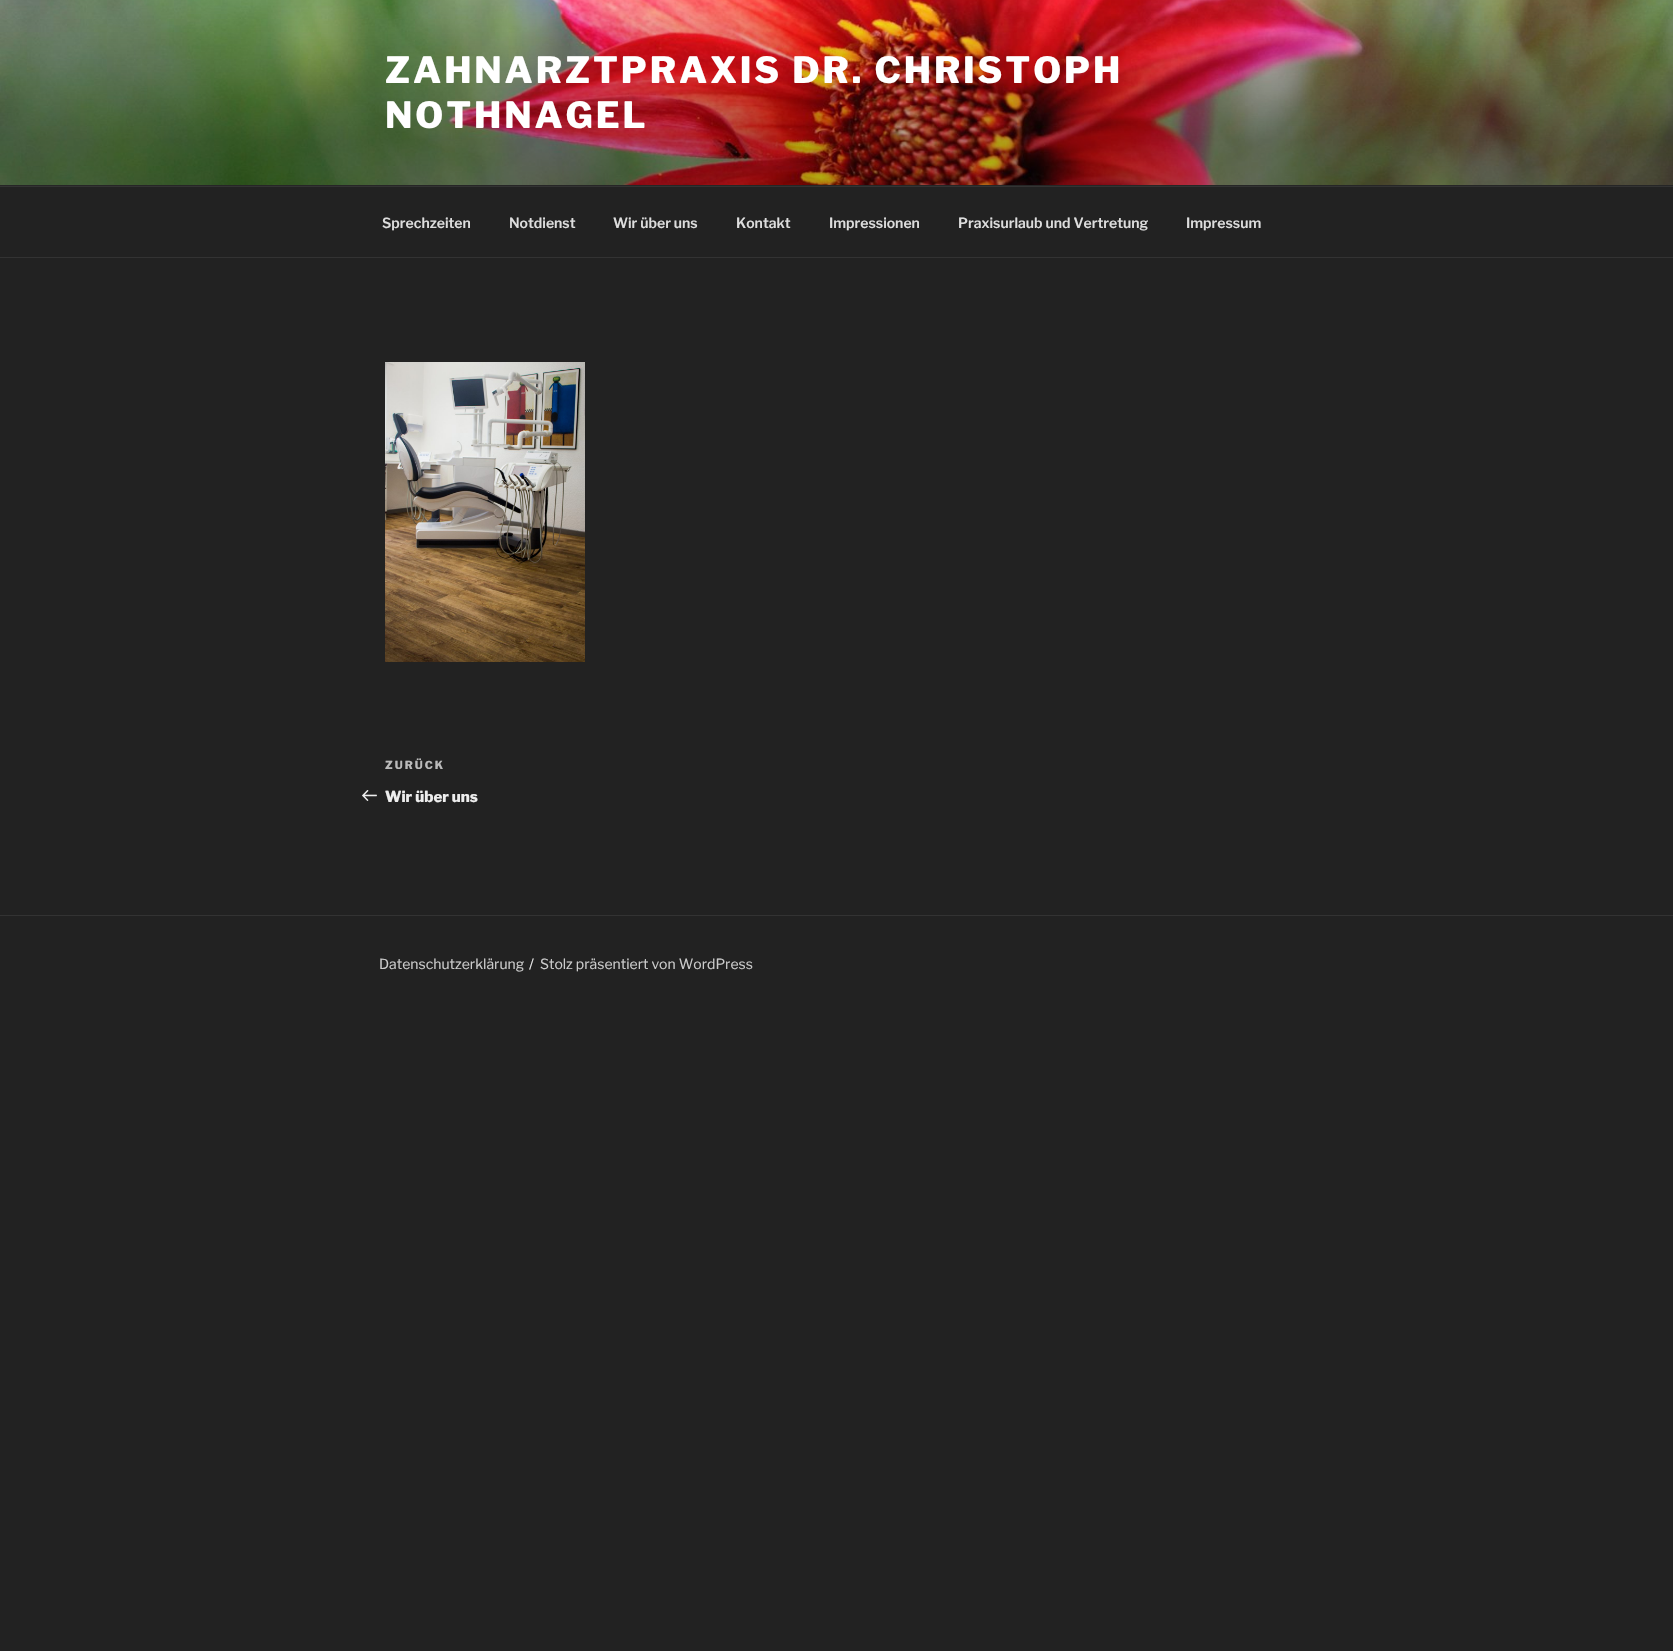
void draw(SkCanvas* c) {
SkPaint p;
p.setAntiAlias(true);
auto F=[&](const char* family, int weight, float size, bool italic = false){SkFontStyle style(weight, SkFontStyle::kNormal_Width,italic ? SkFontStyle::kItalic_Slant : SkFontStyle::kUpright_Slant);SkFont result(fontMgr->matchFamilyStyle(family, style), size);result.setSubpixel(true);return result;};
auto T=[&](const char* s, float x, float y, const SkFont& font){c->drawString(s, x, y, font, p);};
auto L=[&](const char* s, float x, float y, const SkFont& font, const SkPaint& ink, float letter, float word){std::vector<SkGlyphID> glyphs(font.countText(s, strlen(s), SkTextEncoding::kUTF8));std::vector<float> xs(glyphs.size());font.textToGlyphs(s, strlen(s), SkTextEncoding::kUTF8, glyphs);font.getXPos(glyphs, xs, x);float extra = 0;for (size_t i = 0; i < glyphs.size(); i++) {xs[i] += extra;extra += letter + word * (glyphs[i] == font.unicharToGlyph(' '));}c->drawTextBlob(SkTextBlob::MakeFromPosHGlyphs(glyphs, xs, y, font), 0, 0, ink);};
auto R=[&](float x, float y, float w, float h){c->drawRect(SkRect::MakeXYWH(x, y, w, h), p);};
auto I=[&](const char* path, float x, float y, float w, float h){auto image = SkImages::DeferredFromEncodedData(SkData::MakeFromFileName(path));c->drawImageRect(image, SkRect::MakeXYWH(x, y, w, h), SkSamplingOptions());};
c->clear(0xff222222);
p.setColor(0xff262626);
R(0,185,1673,1);
I("1.png",0,0,1673,185);
auto f1 = F("Libre Franklin",800,36);
p.setColor(0xffffffff);
L("ZAHNARZTPRAXIS DR. CHRISTOPH",385,83,f1,p,2.9,0);
L("NOTHNAGEL",385,128,f1,p,2.9,0);
p.setColor(0xff333333);
R(0,186,1673,1);
R(0,257,1673,1);
auto f2 = F("Libre Franklin",600,14);
p.setColor(0xffdddddd);
T("Sprechzeiten",382,228,f2);
T("Notdienst",509,228,f2);
T("Wir über uns",613,228,f2);
T("Kontakt",736,228,f2);
T("Impressionen",829,228,f2);
T("Praxisurlaub und Vertretung",958,228,f2);
T("Impressum",1186,228,f2);
I("2.png",385,362,200,300);
auto f3 = F("Libre Franklin",800,11);
p.setColor(0xffbbbbbb);
L("ZURÜCK",385,769,f3,p,2,0);
I("3.png",362,790,15,11);
auto f4 = F("Libre Franklin",800,15);
p.setColor(0xffeeeeee);
T("Wir über uns",385,802,f4);
p.setColor(0xff333333);
R(0,915,1673,1);
auto f5 = F("Libre Franklin",400,14);
p.setColor(0xffcccccc);
T("Datenschutzerklärung",379,969,f5);
p.setColor(0xffeeeeee);
T("/",529,969,f5);
p.setColor(0xffcccccc);
T("Stolz präsentiert von WordPress",540,969,f5);
}
